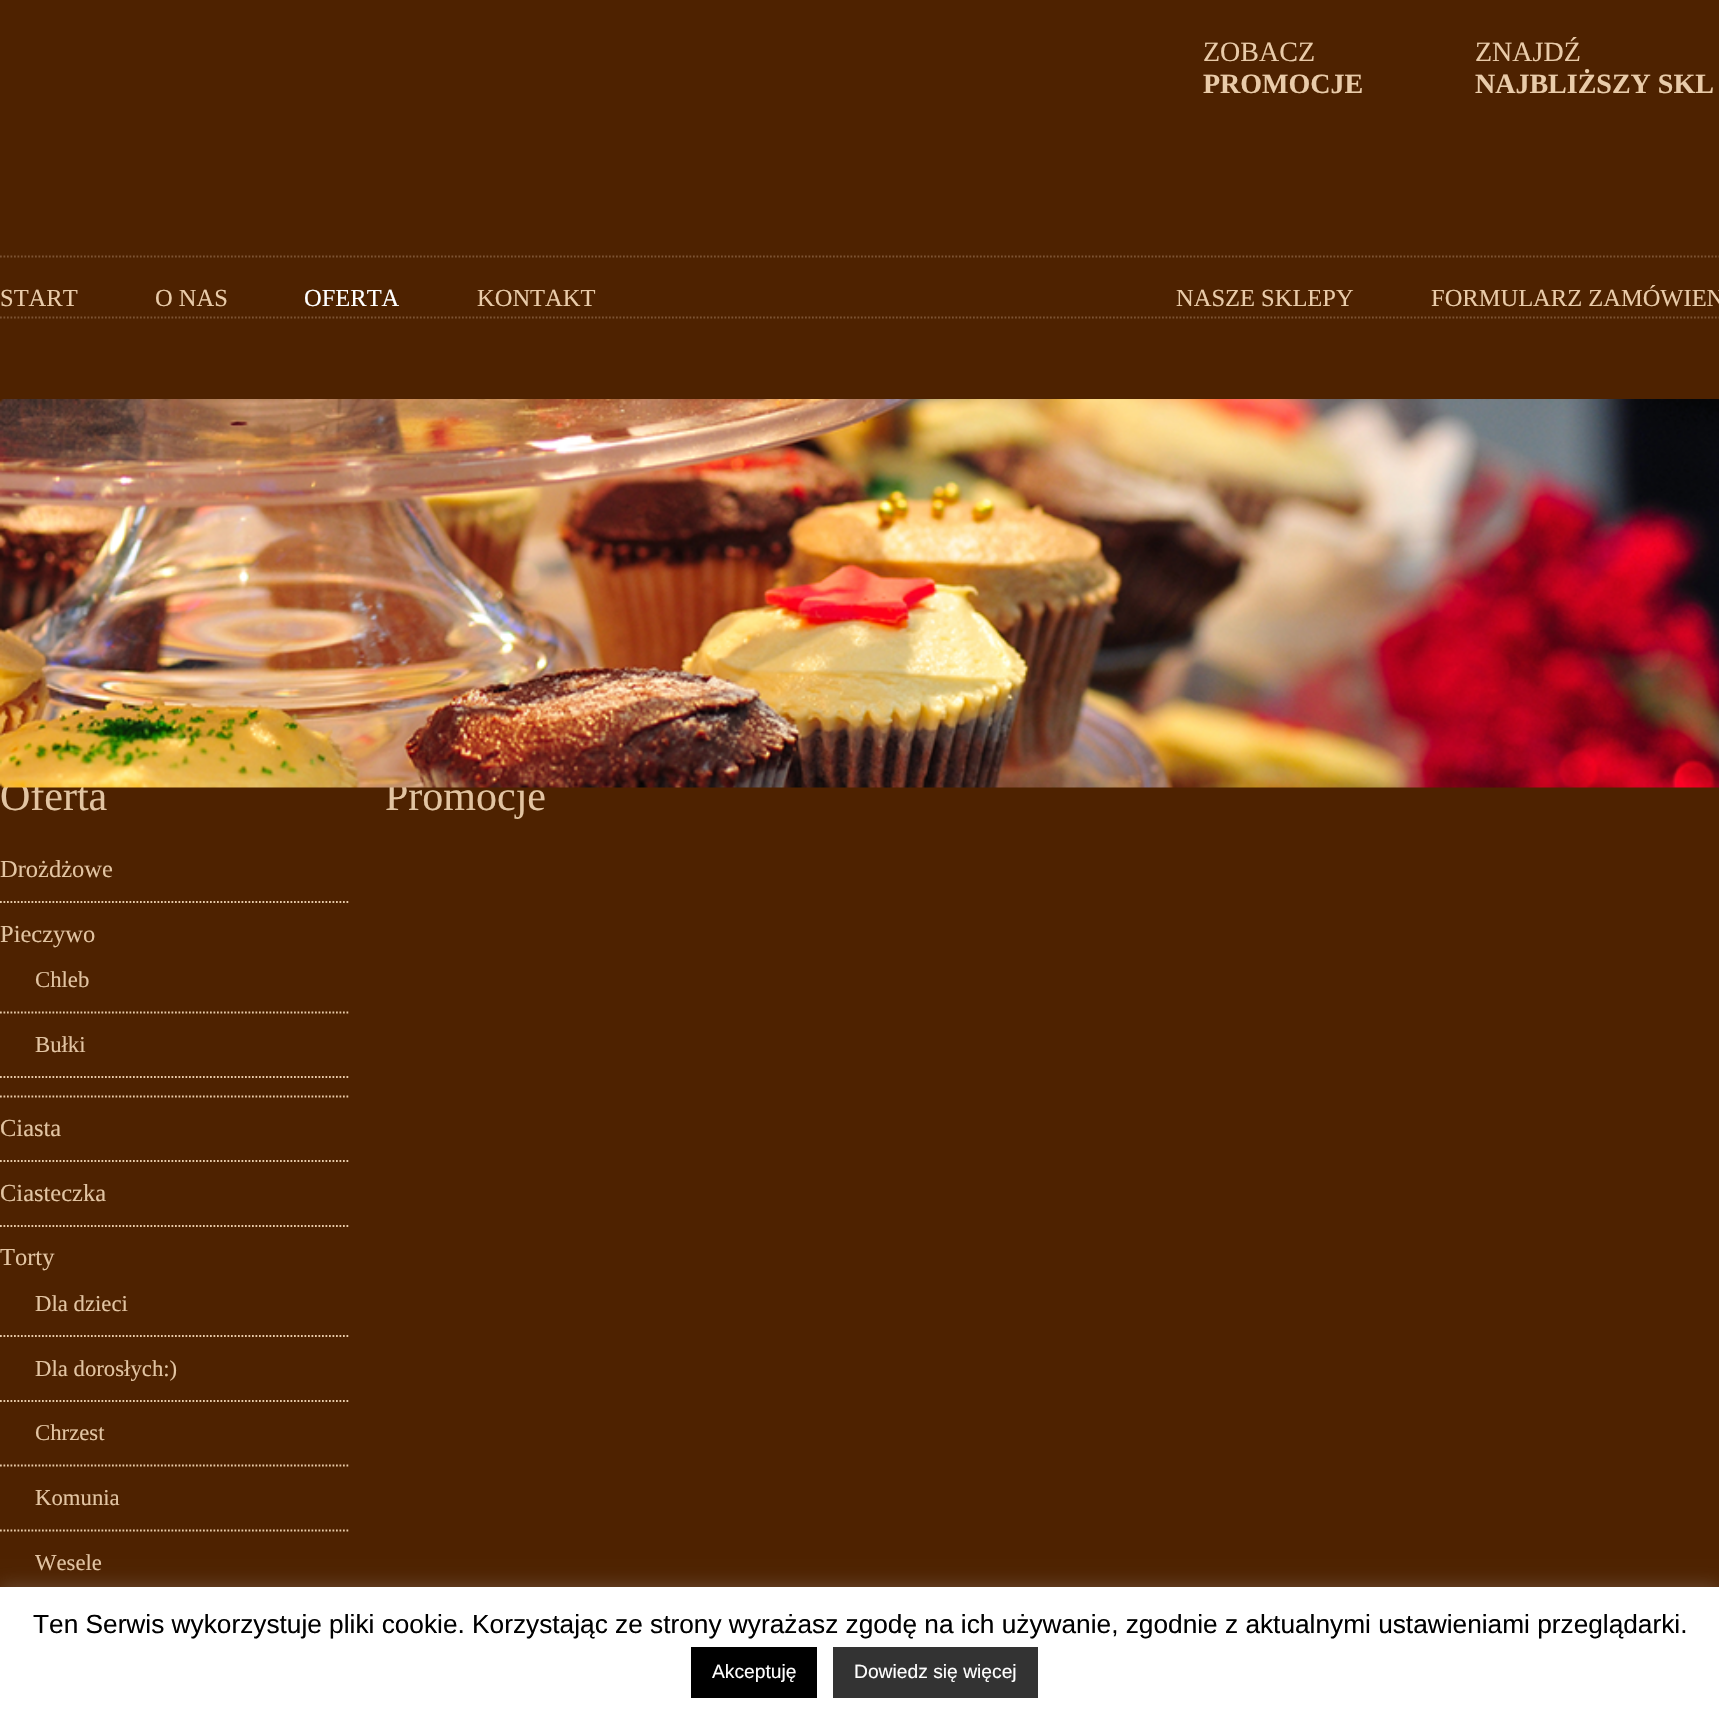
void draw(SkCanvas* c) {
SkPaint p;
p.setAntiAlias(true);
auto F=[&](const char* family, int weight, float size, bool italic = false){SkFontStyle style(weight, SkFontStyle::kNormal_Width,italic ? SkFontStyle::kItalic_Slant : SkFontStyle::kUpright_Slant);SkFont result(fontMgr->matchFamilyStyle(family, style), size);result.setSubpixel(true);return result;};
auto T=[&](const char* s, float x, float y, const SkFont& font){c->drawString(s, x, y, font, p);};
auto R=[&](float x, float y, float w, float h){c->drawRect(SkRect::MakeXYWH(x, y, w, h), p);};
auto I=[&](const char* path, float x, float y, float w, float h){auto image = SkImages::DeferredFromEncodedData(SkData::MakeFromFileName(path));c->drawImageRect(image, SkRect::MakeXYWH(x, y, w, h), SkSamplingOptions());};
auto P=[&](const char* data, bool evenOdd = false){SkPath result = *SkParsePath::FromSVGString(data);if (evenOdd) result.setFillType(SkPathFillType::kEvenOdd);return result;};
c->clear(0xff4e2200);
auto f1 = F("Liberation Serif",400,28);
p.setColor(0xffe9cba9);
T("ZOBACZ",1203,61,f1);
auto f2 = F("Liberation Serif",700,28);
T("PROMOCJE",1203,93,f2);
T("ZNAJDŹ",1475,61,f1);
T("NAJBLIŻSZY SKL",1475,93,f2);
p.setStroke(true);
p.setStrokeWidth(1.8);
p.setColor(0xff7c5333);
p.setPathEffect(SkDashPathEffect::Make({{1.75f,1.75f}}, 0));
c->drawPath(P("M0 256.5h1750"),p);
p.setPathEffect(nullptr);
p.setPathEffect(SkDashPathEffect::Make({{1.75f,1.75f}}, 0));
c->drawPath(P("M0 317.5h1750"),p);
p.setPathEffect(nullptr);
auto f3 = F("Liberation Serif",400,24.5);
p.setStroke(false);
p.setColor(0xffe9cba9);
T("START",0,306,f3);
T("O NAS",155,306,f3);
p.setColor(0xffffffff);
T("OFERTA",304,306,f3);
p.setColor(0xffe9cba9);
T("KONTAKT",477,306,f3);
T("NASZE SKLEPY",1176,306,f3);
T("FORMULARZ ZAMÓWIEN",1431,306,f3);
auto f4 = F("Liberation Serif",400,42);
p.setColor(0xffe2c4a2);
T("Oferta",0,810,f4);
T("Promocje",385,810,f4);
I("1.png",0,399,1719,389);
p.setStroke(true);
p.setColor(0xffe9cba9);
p.setPathEffect(SkDashPathEffect::Make({{1.75f,1.75f}}, 0));
c->drawPath(P("M0 902h350"),p);
p.setPathEffect(nullptr);
p.setStroke(false);
p.setColor(0xffe2c4a2);
T("Drożdżowe",0,877,f3);
p.setStroke(true);
p.setColor(0xffe9cba9);
p.setPathEffect(SkDashPathEffect::Make({{1.75f,1.75f}}, 0));
c->drawPath(P("M0 1096.5h350"),p);
p.setPathEffect(nullptr);
p.setStroke(false);
p.setColor(0xffe2c4a2);
T("Pieczywo",0,942,f3);
p.setStroke(true);
p.setColor(0xffe9cba9);
p.setPathEffect(SkDashPathEffect::Make({{1.75f,1.75f}}, 0));
c->drawPath(P("M0 1012.5h350"),p);
p.setPathEffect(nullptr);
auto f5 = F("Liberation Serif",400,22.75);
p.setStroke(false);
p.setColor(0xffe2c4a2);
T("Chleb",35,987,f5);
p.setStroke(true);
p.setColor(0xffe9cba9);
p.setPathEffect(SkDashPathEffect::Make({{1.75f,1.75f}}, 0));
c->drawPath(P("M0 1077h350"),p);
p.setPathEffect(nullptr);
p.setStroke(false);
p.setColor(0xffe2c4a2);
T("Bułki",35,1052,f5);
p.setStroke(true);
p.setColor(0xffe9cba9);
p.setPathEffect(SkDashPathEffect::Make({{1.75f,1.75f}}, 0));
c->drawPath(P("M0 1161h350"),p);
p.setPathEffect(nullptr);
p.setStroke(false);
p.setColor(0xffe2c4a2);
T("Ciasta",0,1136,f3);
p.setStroke(true);
p.setColor(0xffe9cba9);
p.setPathEffect(SkDashPathEffect::Make({{1.75f,1.75f}}, 0));
c->drawPath(P("M0 1226h350"),p);
p.setPathEffect(nullptr);
p.setStroke(false);
p.setColor(0xffe2c4a2);
T("Ciasteczka",0,1201,f3);
T("Torty",0,1265,f3);
p.setStroke(true);
p.setColor(0xffe9cba9);
p.setPathEffect(SkDashPathEffect::Make({{1.75f,1.75f}}, 0));
c->drawPath(P("M0 1336h350"),p);
p.setPathEffect(nullptr);
p.setStroke(false);
p.setColor(0xffe2c4a2);
T("Dla dzieci",35,1311,f5);
p.setStroke(true);
p.setColor(0xffe9cba9);
p.setPathEffect(SkDashPathEffect::Make({{1.75f,1.75f}}, 0));
c->drawPath(P("M0 1401h350"),p);
p.setPathEffect(nullptr);
p.setStroke(false);
p.setColor(0xffe2c4a2);
T("Dla dorosłych:)",35,1376,f5);
p.setStroke(true);
p.setColor(0xffe9cba9);
p.setPathEffect(SkDashPathEffect::Make({{1.75f,1.75f}}, 0));
c->drawPath(P("M0 1465.5h350"),p);
p.setPathEffect(nullptr);
p.setStroke(false);
p.setColor(0xffe2c4a2);
T("Chrzest",35,1440,f5);
p.setStroke(true);
p.setColor(0xffe9cba9);
p.setPathEffect(SkDashPathEffect::Make({{1.75f,1.75f}}, 0));
c->drawPath(P("M0 1530.5h350"),p);
p.setPathEffect(nullptr);
p.setStroke(false);
p.setColor(0xffe2c4a2);
T("Komunia",35,1505,f5);
T("Wesele",35,1570,f5);
p.setColor(0x4dacabab);
p.setMaskFilter(SkMaskFilter::MakeBlur(kNormal_SkBlurStyle, 9));
c->drawRect(SkRect::MakeXYWH(0,1586,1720,131),p);
p.setMaskFilter(nullptr);
p.setColor(0xffffffff);
R(0,1587,1719,130);
auto f6 = F("Liberation Sans",400,26.25);
p.setColor(0xff000000);
T("Ten Serwis wykorzystuje pliki cookie. Korzystając ze strony wyrażasz zgodę na ich używanie, zgodnie z aktualnymi ustawieniami przeglądarki.",33,1633,f6);
R(691,1647,126,51);
auto f7 = F("Liberation Sans",400,19.25);
p.setColor(0xffffffff);
T("Akceptuję",712,1678,f7);
p.setColor(0xff333333);
R(833,1647,205,51);
p.setColor(0xffffffff);
T("Dowiedz się więcej",854,1678,f7);
}
